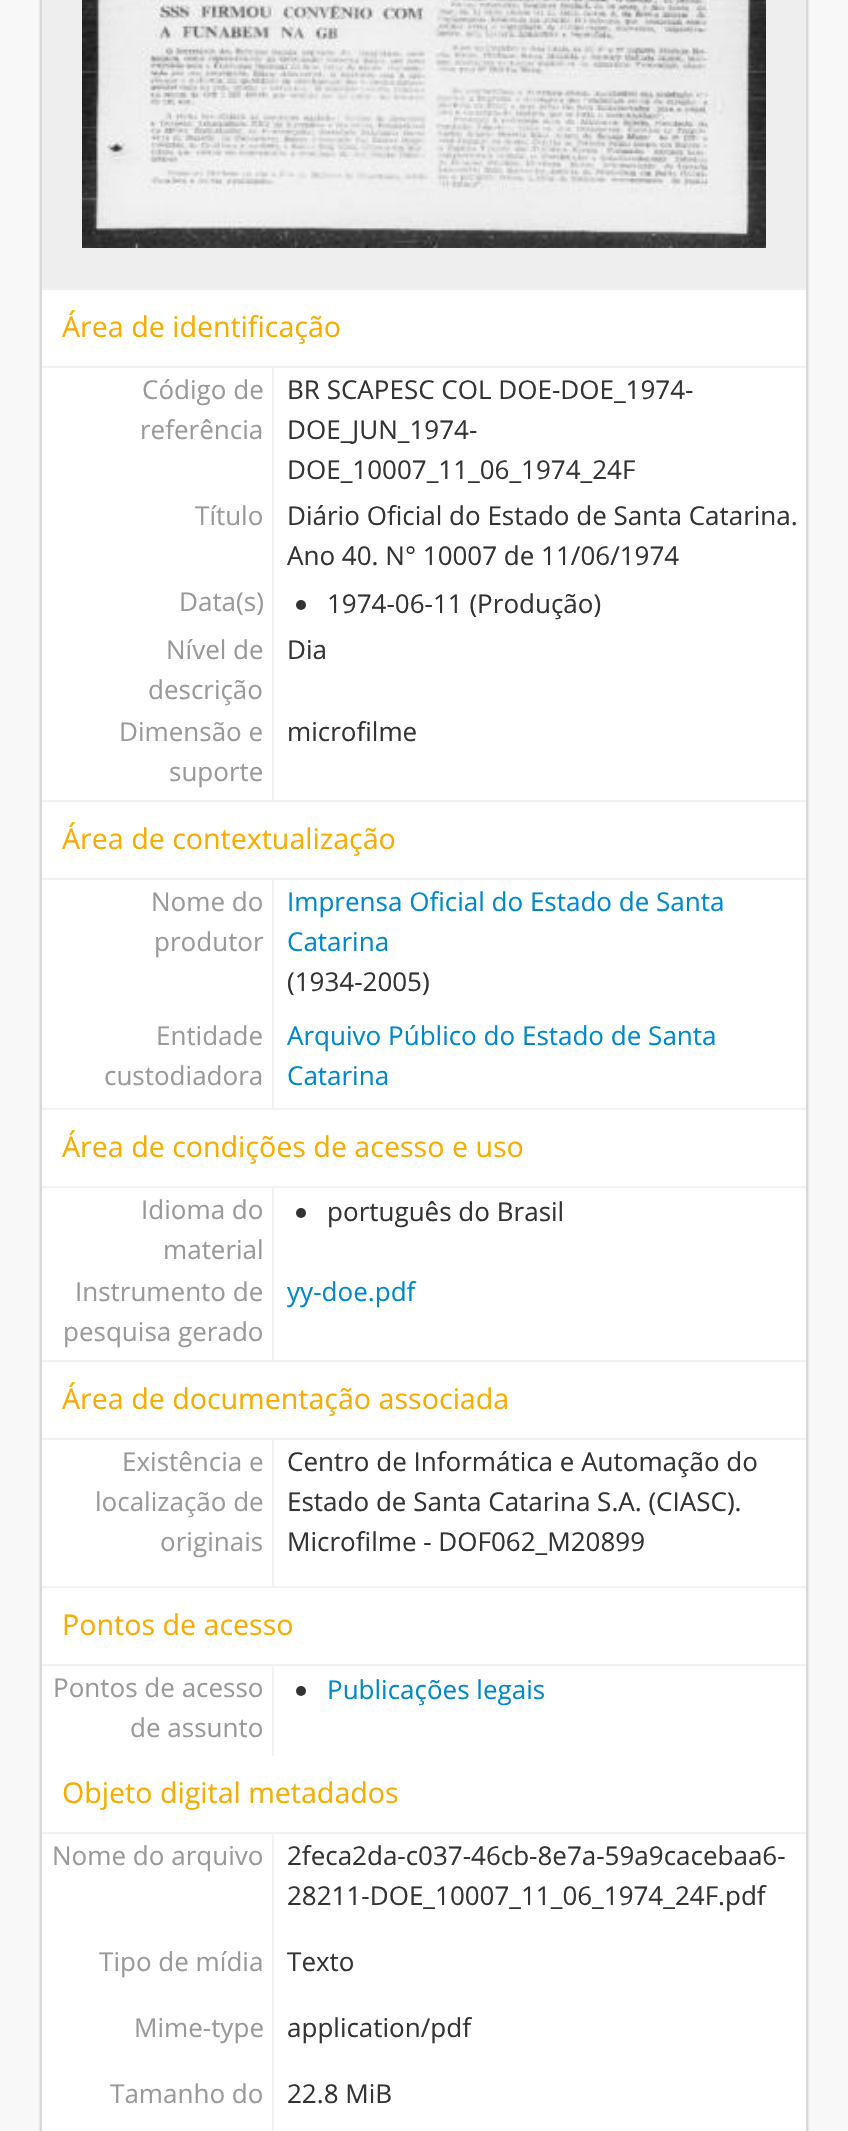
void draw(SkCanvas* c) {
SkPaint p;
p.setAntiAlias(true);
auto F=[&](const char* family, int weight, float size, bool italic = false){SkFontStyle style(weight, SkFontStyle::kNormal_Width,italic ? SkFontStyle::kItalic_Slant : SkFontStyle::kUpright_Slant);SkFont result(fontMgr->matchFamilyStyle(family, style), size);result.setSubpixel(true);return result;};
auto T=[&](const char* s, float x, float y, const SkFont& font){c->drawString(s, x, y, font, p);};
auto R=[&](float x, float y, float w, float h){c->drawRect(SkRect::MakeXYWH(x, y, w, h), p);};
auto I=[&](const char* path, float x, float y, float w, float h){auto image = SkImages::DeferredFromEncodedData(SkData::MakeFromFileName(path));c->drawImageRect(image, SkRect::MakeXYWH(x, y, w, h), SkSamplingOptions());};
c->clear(0xfff8f8f8);
p.setColor(0x33000000);
p.setMaskFilter(SkMaskFilter::MakeBlur(kNormal_SkBlurStyle, 1));
c->drawRoundRect(SkRect::MakeXYWH(40,-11,768,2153),8,8,p);
p.setMaskFilter(nullptr);
p.setColor(0xffffffff);
R(42,290,764,1841);
p.setStroke(true);
p.setStrokeWidth(2);
p.setColor(0xffd9d9d9);
c->drawRect(SkRect::MakeXYWH(41,-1,766,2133),p);
p.setStroke(false);
p.setColor(0xffeeeeee);
R(42,0,764,288);
I("1.png",82,0,684,248);
p.setColor(0xfff2f2f2);
R(42,288,764,2);
R(42,366,764,2);
auto f1 = F("Open Sans",400,28.6);
p.setColor(0xfff6ac00);
T("Área de identificação",62,337,f1);
p.setColor(0xfff2f2f2);
R(272,368,2,432);
auto f2 = F("Open Sans",400,26);
p.setColor(0xff999999);
T("Código de",142,399,f2);
T("referência",140,439,f2);
p.setColor(0xff333333);
T("BR SCAPESC COL DOE-DOE_1974-",287,399,f2);
T("DOE_JUN_1974-",287,439,f2);
T("DOE_10007_11_06_1974_24F",287,479,f2);
p.setColor(0xff999999);
T("Título",195,525,f2);
p.setColor(0xff333333);
T("Diário Oficial do Estado de Santa Catarina.",287,525,f2);
T("Ano 40. N° 10007 de 11/06/1974",287,565,f2);
p.setColor(0xff999999);
T("Data(s)",179,611,f2);
p.setColor(0xff333333);
c->drawCircle(301,605,5,p);
T("1974-06-11 (Produção)",327,613,f2);
p.setColor(0xff999999);
T("Nível de",166,659,f2);
T("descrição",148,699,f2);
p.setColor(0xff333333);
T("Dia",287,659,f2);
p.setColor(0xff999999);
T("Dimensão e",119,741,f2);
T("suporte",169,781,f2);
p.setColor(0xff333333);
T("microfilme",287,741,f2);
p.setColor(0xfff2f2f2);
R(42,800,764,2);
R(42,878,764,2);
p.setColor(0xfff6ac00);
T("Área de contextualização",62,849,f1);
p.setColor(0xfff2f2f2);
R(272,880,2,228);
p.setColor(0xff999999);
T("Nome do",151,911,f2);
T("produtor",154,951,f2);
p.setColor(0xff0088cc);
T("Imprensa Oficial do Estado de Santa",287,911,f2);
T("Catarina",287,951,f2);
p.setColor(0xff333333);
T("(1934-2005)",287,991,f2);
p.setColor(0xff999999);
T("Entidade",156,1045,f2);
T("custodiadora",104,1085,f2);
p.setColor(0xff0088cc);
T("Arquivo Público do Estado de Santa",287,1045,f2);
T("Catarina",287,1085,f2);
p.setColor(0xfff2f2f2);
R(42,1108,764,2);
R(42,1186,764,2);
p.setColor(0xfff6ac00);
T("Área de condições de acesso e uso",62,1157,f1);
p.setColor(0xfff2f2f2);
R(272,1188,2,172);
p.setColor(0xff999999);
T("Idioma do",141,1219,f2);
T("material",163,1259,f2);
p.setColor(0xff333333);
c->drawCircle(301,1213,5,p);
T("português do Brasil",327,1221,f2);
p.setColor(0xff999999);
T("Instrumento de",75,1301,f2);
T("pesquisa gerado",63,1341,f2);
p.setColor(0xff0088cc);
T("yy-doe.pdf",287,1301,f2);
p.setColor(0xfff2f2f2);
R(42,1360,764,2);
R(42,1438,764,2);
p.setColor(0xfff6ac00);
T("Área de documentação associada",62,1409,f1);
p.setColor(0xfff2f2f2);
R(272,1440,2,146);
p.setColor(0xff999999);
T("Existência e",122,1471,f2);
T("localização de",95,1511,f2);
T("originais",160,1551,f2);
p.setColor(0xff333333);
T("Centro de Informática e Automação do",287,1471,f2);
T("Estado de Santa Catarina S.A. (CIASC).",287,1511,f2);
T("Microfilme - DOF062_M20899",287,1551,f2);
p.setColor(0xfff2f2f2);
R(42,1586,764,2);
R(42,1664,764,2);
p.setColor(0xfff6ac00);
T("Pontos de acesso",62,1635,f1);
p.setColor(0xfff2f2f2);
R(272,1666,2,90);
p.setColor(0xff999999);
T("Pontos de acesso",53,1697,f2);
T("de assunto",130,1737,f2);
p.setColor(0xff333333);
c->drawCircle(301,1691,5,p);
p.setColor(0xff0088cc);
T("Publicações legais",327,1699,f2);
p.setColor(0xfff2f2f2);
R(42,1832,764,2);
p.setColor(0xfff6ac00);
T("Objeto digital metadados",62,1803,f1);
p.setColor(0xfff2f2f2);
R(272,1834,2,297);
p.setColor(0xff999999);
T("Nome do arquivo",52,1865,f2);
p.setColor(0xff333333);
T("2feca2da-c037-46cb-8e7a-59a9cacebaa6-",287,1865,f2);
T("28211-DOE_10007_11_06_1974_24F.pdf",287,1905,f2);
p.setColor(0xff999999);
T("Tipo de mídia",99,1971,f2);
p.setColor(0xff333333);
T("Texto",287,1971,f2);
p.setColor(0xff999999);
T("Mime-type",134,2037,f2);
p.setColor(0xff333333);
T("application/pdf",287,2037,f2);
p.setColor(0xff999999);
T("Tamanho do",110,2103,f2);
p.setColor(0xff333333);
T("22.8 MiB",287,2103,f2);
}
